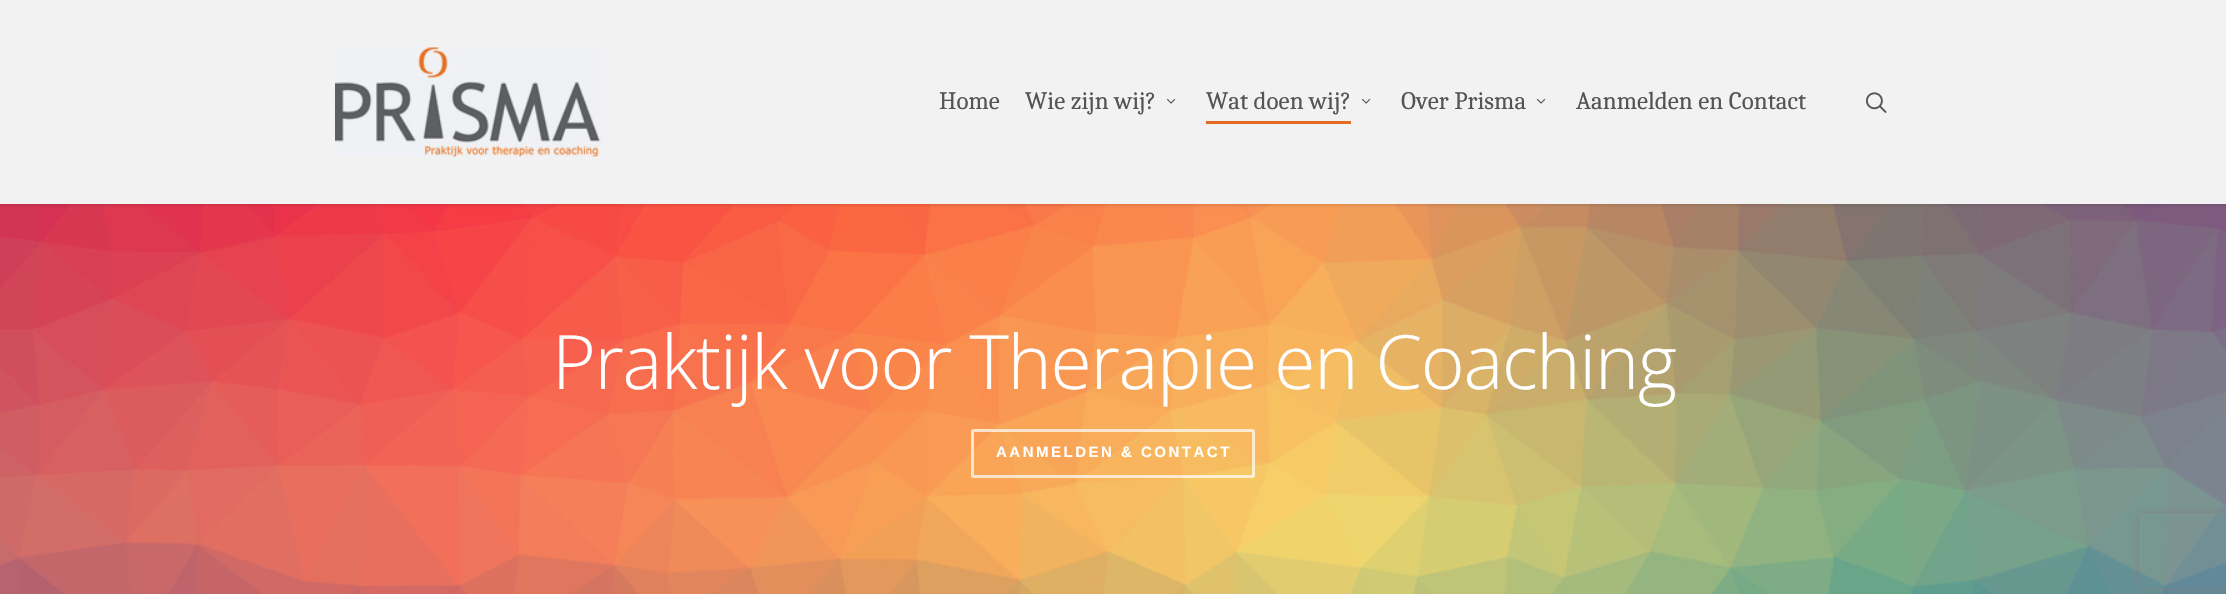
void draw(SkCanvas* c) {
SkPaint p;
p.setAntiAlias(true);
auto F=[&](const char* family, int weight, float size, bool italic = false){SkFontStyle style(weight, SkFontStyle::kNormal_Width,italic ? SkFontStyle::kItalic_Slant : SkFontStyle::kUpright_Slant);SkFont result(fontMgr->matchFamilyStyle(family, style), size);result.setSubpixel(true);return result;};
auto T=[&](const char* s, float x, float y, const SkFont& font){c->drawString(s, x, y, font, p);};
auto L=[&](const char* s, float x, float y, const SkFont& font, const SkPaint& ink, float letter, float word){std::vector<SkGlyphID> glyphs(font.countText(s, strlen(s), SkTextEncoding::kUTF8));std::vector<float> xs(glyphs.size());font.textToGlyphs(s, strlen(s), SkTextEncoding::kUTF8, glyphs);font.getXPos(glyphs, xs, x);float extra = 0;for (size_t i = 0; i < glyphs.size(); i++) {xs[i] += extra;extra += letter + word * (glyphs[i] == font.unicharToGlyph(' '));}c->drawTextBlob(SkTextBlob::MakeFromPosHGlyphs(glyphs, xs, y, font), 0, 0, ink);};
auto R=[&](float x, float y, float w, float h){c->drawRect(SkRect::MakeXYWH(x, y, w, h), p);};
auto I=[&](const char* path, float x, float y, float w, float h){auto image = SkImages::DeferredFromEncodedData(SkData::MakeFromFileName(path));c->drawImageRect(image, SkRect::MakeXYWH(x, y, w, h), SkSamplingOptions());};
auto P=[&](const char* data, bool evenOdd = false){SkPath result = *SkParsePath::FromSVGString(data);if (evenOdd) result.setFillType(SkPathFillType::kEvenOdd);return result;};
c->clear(0xffffffff);
I("4.png",0,204,2226,390);
p.setColor(0x38000000);
p.setMaskFilter(SkMaskFilter::MakeBlur(kNormal_SkBlurStyle, 2));
c->drawRect(SkRect::MakeXYWH(0,0,2226,204),p);
p.setMaskFilter(nullptr);
p.setColor(0xfff2f2f2);
R(0,0,2226,204);
I("1.png",335,47,268,110);
auto f1 = F("Caladea",400,25);
p.setColor(0xff545454);
T("Home",939,109,f1);
T("Wie zijn wij?",1025,109,f1);
I("2.png",1166,98,10,6);
T("Wat doen wij?",1206,109,f1);
p.setColor(0xffe56b23);
R(1206,121,145,3);
I("2.png",1361,98,10,6);
p.setColor(0xff545454);
T("Over Prisma",1401,109,f1);
I("2.png",1536,98,10,6);
T("Aanmelden en Contact",1576,109,f1);
I("3.png",1866,92,21,21);
auto f2 = F("Open Sans",300,75);
p.setColor(0xffffffff);
L("Praktijk voor Therapie en Coaching",552,389,f2,p,-1.25,0);
p.setStroke(true);
p.setStrokeWidth(3);
p.setColor(0xb3ffffff);
c->drawRoundRect(SkRect::MakeXYWH(972.5,430.5,281,46),1,1,p);
auto f3 = F("Liberation Sans",700,15);
p.setStroke(false);
p.setColor(0xffffffff);
L("AANMELDEN & CONTACT",996,457,f3,p,2.5,0);
c->save();
c->clipPath(P("M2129 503h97v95h-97zm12.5 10h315c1.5 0 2.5 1 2.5 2.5v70c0 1.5-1 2.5-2.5 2.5h-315c-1.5 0-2.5-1-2.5-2.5v-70c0-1.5 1-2.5 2.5-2.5z",true),true);
p.setColor(0xff808080);
p.setMaskFilter(SkMaskFilter::MakeBlur(kNormal_SkBlurStyle, 3));
c->drawRoundRect(SkRect::MakeXYWH(2139,513,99,75),2.5,2.5,p);
p.setMaskFilter(nullptr);
c->restore();
}
